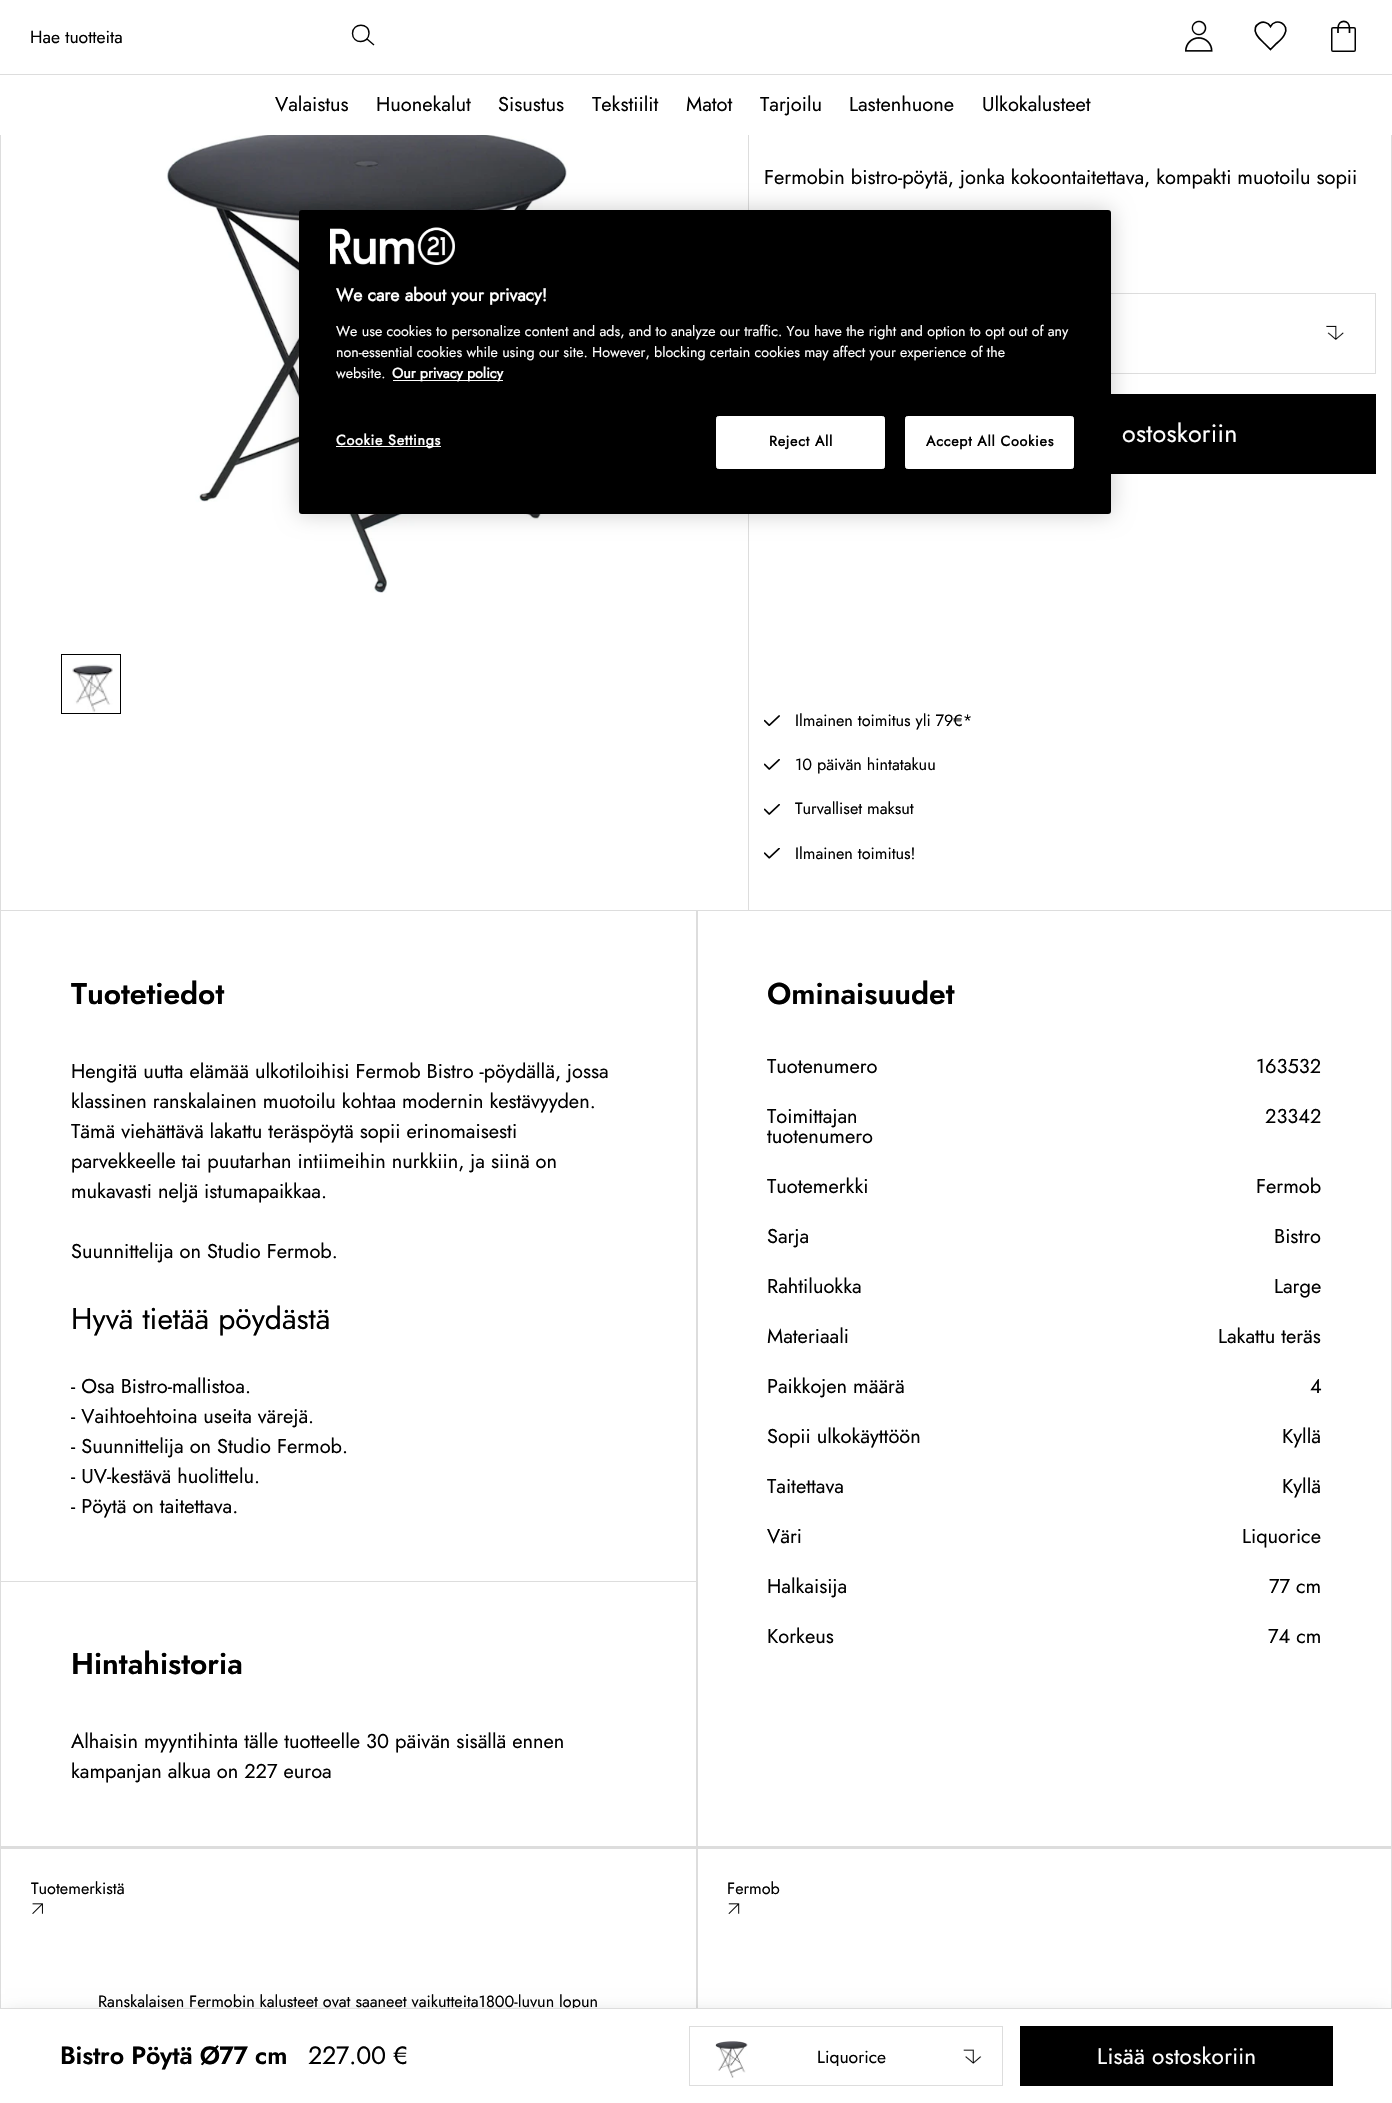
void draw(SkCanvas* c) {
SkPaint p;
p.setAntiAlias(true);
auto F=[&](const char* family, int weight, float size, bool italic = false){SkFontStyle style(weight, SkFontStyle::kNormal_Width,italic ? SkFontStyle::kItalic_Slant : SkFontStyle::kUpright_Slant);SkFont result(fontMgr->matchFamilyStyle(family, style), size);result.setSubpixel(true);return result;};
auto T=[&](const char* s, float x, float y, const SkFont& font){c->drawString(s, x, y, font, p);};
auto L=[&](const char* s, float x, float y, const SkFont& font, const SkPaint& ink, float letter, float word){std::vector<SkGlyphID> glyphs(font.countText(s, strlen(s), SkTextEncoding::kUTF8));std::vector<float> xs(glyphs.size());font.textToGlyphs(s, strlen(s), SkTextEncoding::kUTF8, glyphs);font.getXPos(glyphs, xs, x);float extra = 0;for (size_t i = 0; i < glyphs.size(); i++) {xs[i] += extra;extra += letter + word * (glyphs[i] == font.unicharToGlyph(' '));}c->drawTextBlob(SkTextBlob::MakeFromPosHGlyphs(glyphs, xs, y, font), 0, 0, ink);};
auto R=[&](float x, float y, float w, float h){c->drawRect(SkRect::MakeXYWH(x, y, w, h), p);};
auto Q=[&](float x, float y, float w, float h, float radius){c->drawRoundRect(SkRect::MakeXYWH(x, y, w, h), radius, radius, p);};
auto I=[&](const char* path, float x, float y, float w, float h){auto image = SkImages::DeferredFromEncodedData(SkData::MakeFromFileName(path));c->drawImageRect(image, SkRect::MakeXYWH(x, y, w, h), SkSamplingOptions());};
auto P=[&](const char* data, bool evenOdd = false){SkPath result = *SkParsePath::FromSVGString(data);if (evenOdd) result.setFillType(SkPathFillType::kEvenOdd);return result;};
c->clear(0xffffffff);
p.setColor(0xffdddddd);
R(0,74,1392,1);
auto f1 = F("Jost",400,17.5);
p.setColor(0xff000000);
T("Hae tuotteita",30,43,f1);
p.setStroke(true);
p.setStrokeWidth(1.4);
c->drawPath(P("M352.5 33.5c0-11 17-11 16.5 0c-.5 11-16.5 10.5-16.5 0zm14.5 5.5l7 6z"),p);
I("1.png",1185,20,28,32);
p.setStrokeWidth(1.7);
c->drawPath(P("M1270.5 49.5l6-6c3-2.5 6.5-5.5 8-9c6-10.5-9-17.5-14-8c-5-9-20-2.5-14 8c2 3.5 5.5 6.5 8 9z"),p);
c->drawPath(P("M1338 33v-4.5c0-9.5 11.5-9.5 11.5 0v4.5"),p);
p.setStrokeWidth(1.5);
c->drawRoundRect(SkRect::MakeXYWH(1331.75,27.75,23.5,23.5),1.25,1.25,p);
auto f2 = F("Jost",400,20);
p.setStroke(false);
T("Valaistus",275,111,f2);
T("Huonekalut",376,111,f2);
T("Sisustus",498,111,f2);
T("Tekstiilit",592,111,f2);
T("Matot",686,111,f2);
T("Tarjoilu",760,111,f2);
T("Lastenhuone",849,111,f2);
T("Ulkokalusteet",982,111,f2);
p.setColor(0xffdddddd);
R(1391,135,1,775);
R(0,135,1,775);
I("2.png",166,135,463,458);
I("3.png",72,664,41,49);
p.setStroke(true);
p.setStrokeWidth(1);
p.setColor(0xff000000);
c->drawRect(SkRect::MakeXYWH(61.5,654.5,59,59),p);
p.setStroke(false);
p.setColor(0xffdddddd);
R(748,135,1,775);
p.setColor(0xff000000);
T("Fermobin bistro-pöytä, jonka kokoontaitettava, kompakti muotoilu sopii",764,184,f2);
p.setStroke(true);
p.setColor(0xffdddddd);
c->drawRect(SkRect::MakeXYWH(764.5,293.5,611,80),p);
I("4.png",1326,325,18,15);
p.setStroke(false);
p.setColor(0xff000000);
R(1111,394,265,80);
auto f3 = F("Jost",400,25);
p.setColor(0xffffffff);
L("ostoskoriin",1122,442,f3,p,.25,0);
I("5.png",764,715,16,11);
auto f4 = F("Jost",400,16.25);
p.setColor(0xff000000);
T("Ilmainen toimitus yli 79€*",795,726,f4);
I("6.png",764,759,16,11);
T("10 päivän hintatakuu",795,770,f4);
I("6.png",764,804,16,11);
T("Turvalliset maksut",795,814,f4);
I("7.png",764,848,16,11);
T("Ilmainen toimitus!",795,859,f4);
p.setColor(0xffdddddd);
R(0,910,1392,1098);
p.setColor(0xffffffff);
R(1,1849,695,159);
R(698,1849,693,159);
p.setColor(0x40000000);
p.setMaskFilter(SkMaskFilter::MakeBlur(kNormal_SkBlurStyle, 10));
c->drawRect(SkRect::MakeXYWH(5,2018,1383,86),p);
p.setMaskFilter(nullptr);
p.setColor(0xff000000);
T("Ranskalaisen Fermobin kalusteet ovat saaneet vaikutteita1800-luvun lopun",98,2007,f4);
p.setColor(0xffffffff);
R(0,2009,1392,94);
p.setColor(0xffdddddd);
R(0,2008,1392,1);
auto f5 = F("Jost",600,25);
p.setColor(0xff000000);
L("Bistro Pöytä Ø77 cm",60,2064,f5,p,-.2,0);
L("227.00 €",308,2064,f3,p,-.2,0);
p.setStroke(true);
p.setColor(0xffdddddd);
c->drawRect(SkRect::MakeXYWH(689.5,2026.5,313,59),p);
I("8.png",715,2041,33,37);
c->save();
c->clipRect(SkRect::MakeXYWH(818,2046,68,20));
p.setStroke(false);
p.setColor(0xff000000);
T("Liquorice",817,2063,f1);
c->restore();
I("9.png",963,2049,19,15);
R(1020,2026,313,60);
auto f6 = F("Jost",400,22.5);
p.setColor(0xffffffff);
L("Lisää ostoskoriin",1097,2064,f6,p,.25,0);
R(1,911,695,935);
auto f7 = F("Jost",600,30);
p.setColor(0xff000000);
T("Tuotetiedot",71,1004,f7);
T("Hengitä uutta elämää ulkotiloihisi Fermob Bistro -pöydällä, jossa",71,1078,f2);
T("klassinen ranskalainen muotoilu kohtaa modernin kestävyyden.",71,1108,f2);
T("Tämä viehättävä lakattu teräspöytä sopii erinomaisesti",71,1138,f2);
T("parvekkeelle tai puutarhan intiimeihin nurkkiin, ja siinä on",71,1168,f2);
T("mukavasti neljä istumapaikkaa.",71,1198,f2);
T("Suunnittelija on Studio Fermob.",71,1258,f2);
auto f8 = F("Jost",400,30);
T("Hyvä tietää pöydästä",71,1329,f8);
T("- Osa Bistro-mallistoa.",71,1393,f2);
T("- Vaihtoehtoina useita värejä.",71,1423,f2);
T("- Suunnittelija on Studio Fermob.",71,1453,f2);
T("- UV-kestävä huolittelu.",71,1483,f2);
T("- Pöytä on taitettava.",71,1513,f2);
p.setColor(0xffdddddd);
R(1,1581,695,1);
p.setColor(0xff000000);
T("Hintahistoria",71,1674,f7);
T("Alhaisin myyntihinta tälle tuotteelle 30 päivän sisällä ennen",71,1748,f2);
T("kampanjan alkua on 227 euroa",71,1778,f2);
p.setColor(0xffffffff);
R(698,911,693,935);
p.setColor(0xff000000);
T("Ominaisuudet",767,1004,f7);
T("Tuotenumero",767,1073,f2);
T("163532",1256,1073,f2);
T("Toimittajan",767,1123,f2);
T("tuotenumero",767,1143,f2);
T("23342",1265,1123,f2);
T("Tuotemerkki",767,1193,f2);
T("Fermob",1256,1193,f2);
T("Sarja",767,1243,f2);
T("Bistro",1274,1243,f2);
T("Rahtiluokka",767,1293,f2);
T("Large",1274,1293,f2);
T("Materiaali",767,1343,f2);
T("Lakattu teräs",1218,1343,f2);
T("Paikkojen määrä",767,1393,f2);
T("4",1310,1393,f2);
T("Sopii ulkokäyttöön",767,1443,f2);
T("Kyllä",1282,1443,f2);
T("Taitettava",767,1493,f2);
T("Kyllä",1282,1493,f2);
T("Väri",767,1543,f2);
T("Liquorice",1242,1543,f2);
T("Halkaisija",767,1593,f2);
T("77 cm",1269,1593,f2);
T("Korkeus",767,1643,f2);
T("74 cm",1268,1643,f2);
T("Tuotemerkistä",31,1894,f4);
I("10.png",32,1903,11,11);
T("Fermob",727,1894,f4);
I("11.png",728,1903,12,11);
p.setColor(0x33000000);
p.setMaskFilter(SkMaskFilter::MakeBlur(kNormal_SkBlurStyle, 11));
c->drawRoundRect(SkRect::MakeXYWH(299,210,812,304),3,3,p);
p.setMaskFilter(nullptr);
p.setColor(0xff000000);
Q(299,210,812,304,3);
I("12.png",330,227,125,38);
auto f9 = F("Jost",700,17.5);
p.setColor(0xffffffff);
T("We care about your privacy!",336,301,f9);
auto f10 = F("Jost",400,14.23);
T("We use cookies to personalize content and ads, and to analyze our traffic. You have the right and option to opt out of any",336,336,f10);
T("non-essential cookies while using our site. However, blocking certain cookies may affect your experience of the",336,357,f10);
T("website.",336,378,f10);
R(393,380,110,1);
auto f11 = F("Jost",700,14.23);
T("Our privacy policy",392,378,f11);
R(336,446,105,1);
L("Cookie Settings",336,445,f11,p,.75,0);
c->drawRoundRect(SkRect::MakeXYWH(716.5,416.5,168,52),2,2,p);
p.setStroke(true);
c->drawRoundRect(SkRect::MakeXYWH(716.5,416.5,168,52),2,2,p);
p.setStroke(false);
p.setColor(0xff000000);
L("Reject All",769,446,f11,p,.75,0);
p.setColor(0xffffffff);
c->drawRoundRect(SkRect::MakeXYWH(905.5,416.5,168,52),2,2,p);
p.setStroke(true);
c->drawRoundRect(SkRect::MakeXYWH(905.5,416.5,168,52),2,2,p);
p.setStroke(false);
p.setColor(0xff000000);
L("Accept All Cookies",926,446,f11,p,.75,0);
}
